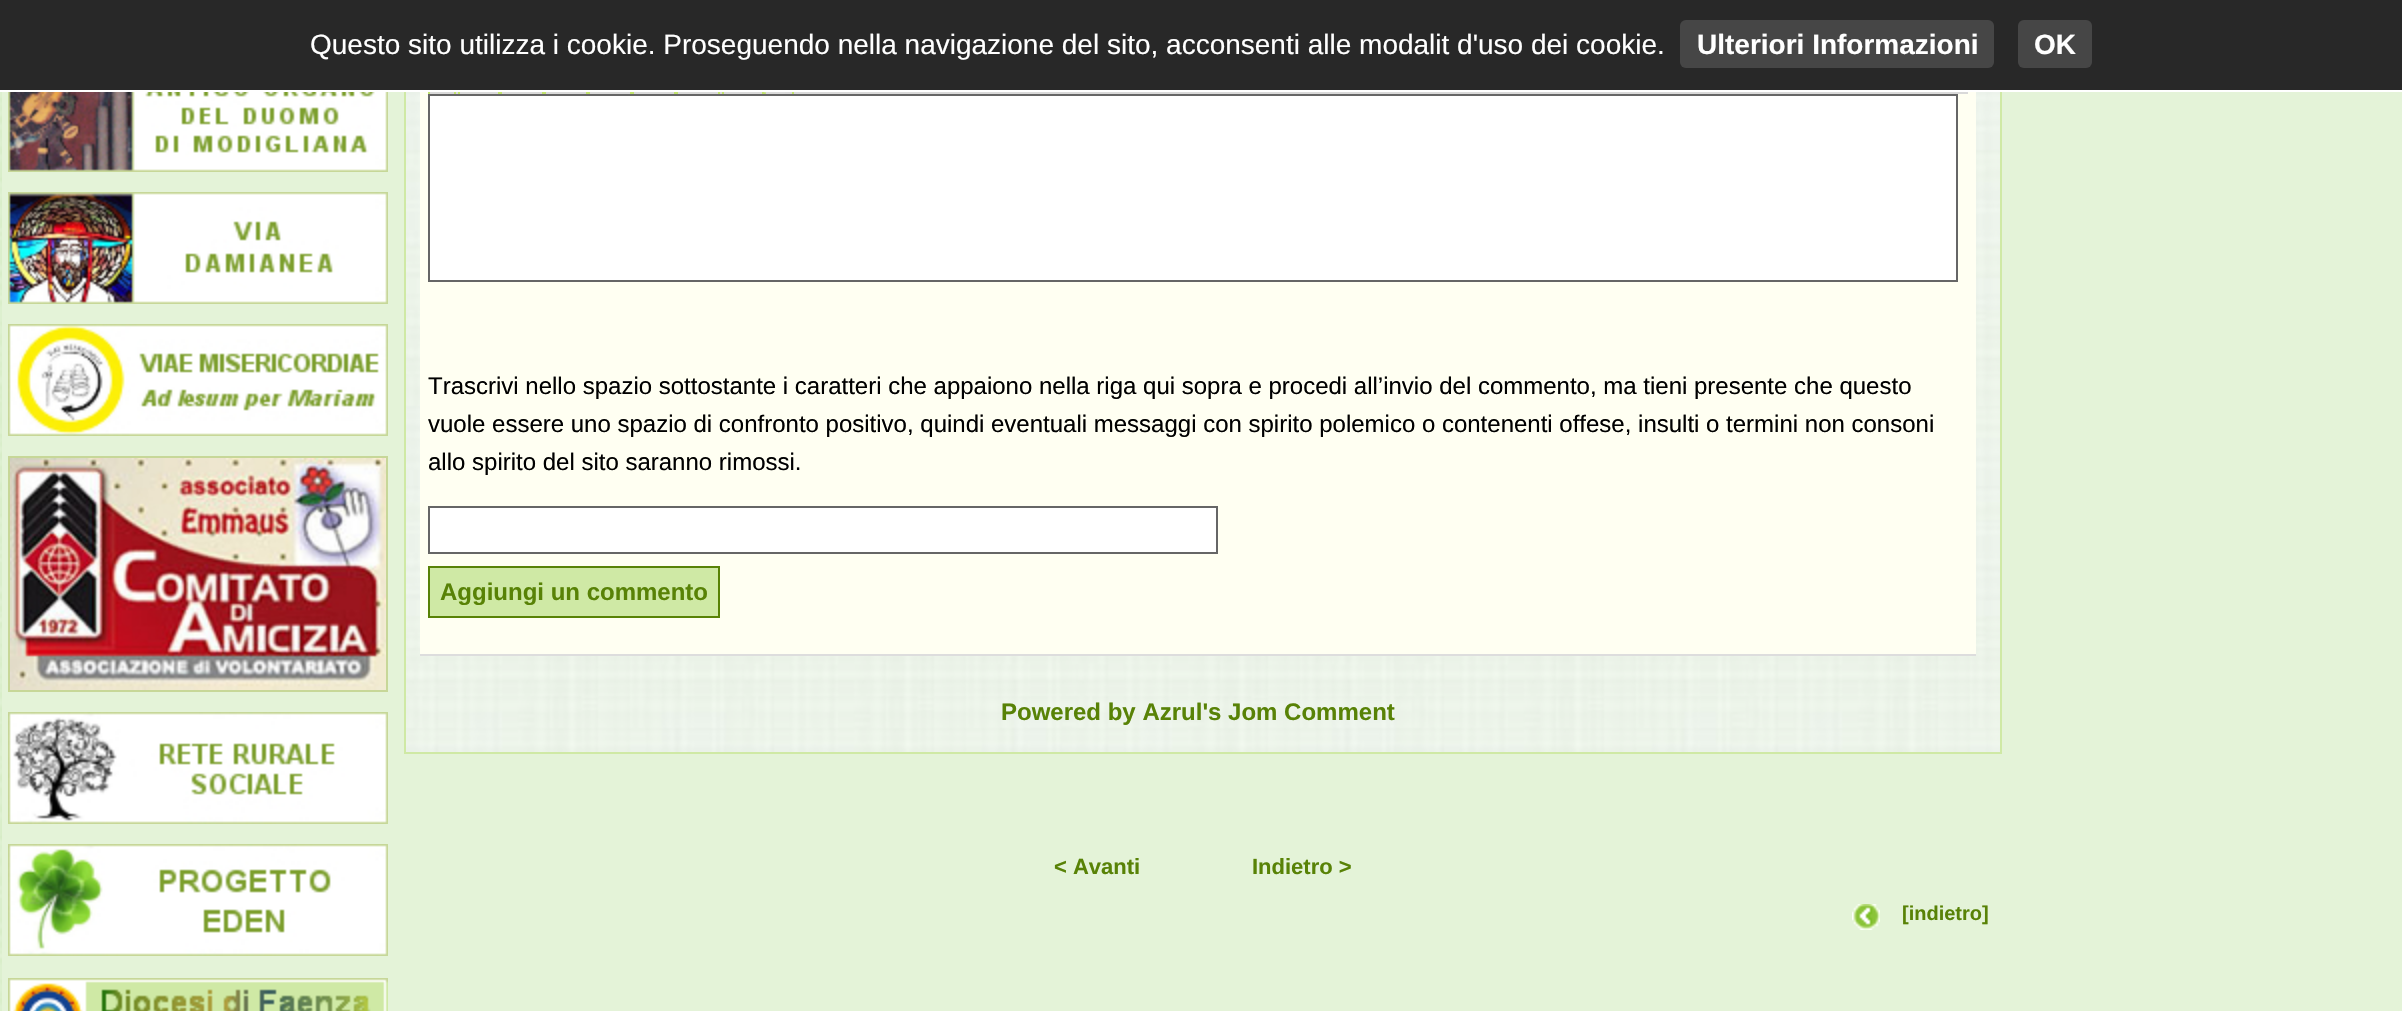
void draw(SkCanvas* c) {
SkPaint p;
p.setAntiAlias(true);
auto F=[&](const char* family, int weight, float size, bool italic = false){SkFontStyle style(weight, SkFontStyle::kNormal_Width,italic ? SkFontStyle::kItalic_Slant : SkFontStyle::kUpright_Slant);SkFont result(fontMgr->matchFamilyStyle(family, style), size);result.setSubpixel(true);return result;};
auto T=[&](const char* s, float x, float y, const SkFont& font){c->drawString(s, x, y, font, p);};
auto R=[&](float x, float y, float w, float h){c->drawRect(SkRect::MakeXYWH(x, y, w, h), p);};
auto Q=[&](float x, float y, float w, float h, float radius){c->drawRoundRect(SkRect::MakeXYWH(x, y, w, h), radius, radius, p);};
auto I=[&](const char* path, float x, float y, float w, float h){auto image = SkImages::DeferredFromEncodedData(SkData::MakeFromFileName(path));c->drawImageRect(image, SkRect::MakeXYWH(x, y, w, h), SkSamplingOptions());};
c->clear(0xffffffff);
I("1.png",0,92,2,919);
I("9.png",406,92,1594,660);
p.setStroke(true);
p.setStrokeWidth(2);
p.setColor(0xffcfe9a5);
c->drawRect(SkRect::MakeXYWH(405,-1,1596,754),p);
p.setStroke(false);
p.setColor(0xfffffff2);
R(420,92,1556,562);
I("10.png",430,92,1538,2);
p.setStroke(true);
p.setColor(0xffc0e26f);
c->drawRect(SkRect::MakeXYWH(429,43,30,54),p);
c->drawRect(SkRect::MakeXYWH(455,43,46,54),p);
c->drawRect(SkRect::MakeXYWH(499,43,46,54),p);
c->drawRect(SkRect::MakeXYWH(543,43,46,54),p);
c->drawRect(SkRect::MakeXYWH(587,43,46,54),p);
c->drawRect(SkRect::MakeXYWH(631,43,46,54),p);
c->drawRect(SkRect::MakeXYWH(675,43,48,54),p);
c->drawRect(SkRect::MakeXYWH(719,43,46,54),p);
c->drawRect(SkRect::MakeXYWH(763,43,30,54),p);
p.setStroke(false);
p.setColor(0xff282828);
R(0,0,2402,90);
p.setColor(0xffffffff);
R(404,90,1598,2);
auto f1 = F("Liberation Sans",400,28);
T("Questo sito utilizza i cookie. Proseguendo nella navigazione del sito, acconsenti alle modalit d'uso dei cookie.",310,54,f1);
p.setColor(0xff464646);
Q(1680,20,314,48,6);
auto f2 = F("Liberation Sans",700,28);
p.setColor(0xffffffff);
T("Ulteriori Informazioni",1697,54,f2);
p.setColor(0xff464646);
Q(2018,20,74,48,6);
p.setColor(0xffffffff);
T("OK",2034,54,f2);
p.setColor(0xffe4f3d8);
R(2,92,6,919);
R(8,172,380,806);
I("2.png",8,92,380,80);
I("3.png",8,192,380,112);
I("4.png",8,324,380,112);
I("5.png",10,458,376,232);
p.setStroke(true);
p.setColor(0xffc7d798);
c->drawRect(SkRect::MakeXYWH(9,457,378,234),p);
I("6.png",8,712,380,112);
I("7.png",8,844,380,112);
I("8.png",8,978,380,33);
p.setStroke(false);
p.setColor(0xffe4f3d8);
R(388,92,16,919);
R(404,754,1598,257);
p.setColor(0xffdddddd);
R(420,654,1556,2);
I("11.png",764,92,21,2);
p.setColor(0xffffffff);
c->drawRect(SkRect::MakeXYWH(429,95,1528,186),p);
p.setStroke(true);
p.setColor(0xff666666);
c->drawRect(SkRect::MakeXYWH(429,95,1528,186),p);
auto f3 = F("Liberation Sans",400,24);
p.setStroke(false);
p.setColor(0xff000000);
T("Trascrivi nello spazio sottostante i caratteri che appaiono nella riga qui sopra e procedi all’invio del commento, ma tieni presente che questo",428,394,f3);
T("vuole essere uno spazio di confronto positivo, quindi eventuali messaggi con spirito polemico o contenenti offese, insulti o termini non consoni",428,432,f3);
T("allo spirito del sito saranno rimossi.",428,470,f3);
p.setColor(0xffffffff);
c->drawRect(SkRect::MakeXYWH(429,507,788,46),p);
p.setStroke(true);
p.setColor(0xff666666);
c->drawRect(SkRect::MakeXYWH(429,507,788,46),p);
p.setStroke(false);
p.setColor(0xffcfe9a5);
c->drawRect(SkRect::MakeXYWH(429,567,290,50),p);
p.setStroke(true);
p.setColor(0xff588206);
c->drawRect(SkRect::MakeXYWH(429,567,290,50),p);
auto f4 = F("Liberation Sans",700,24);
p.setStroke(false);
T("Aggiungi un commento",440,600,f4);
T("Powered by Azrul's Jom Comment",1001,720,f4);
auto f5 = F("Liberation Sans",700,22);
T("< Avanti",1054,874,f5);
T("Indietro >",1252,874,f5);
I("12.png",1852,904,28,26);
auto f6 = F("Liberation Sans",700,20);
T("[indietro]",1902,920,f6);
p.setColor(0xffe4f3d8);
R(2002,92,400,919);
}
